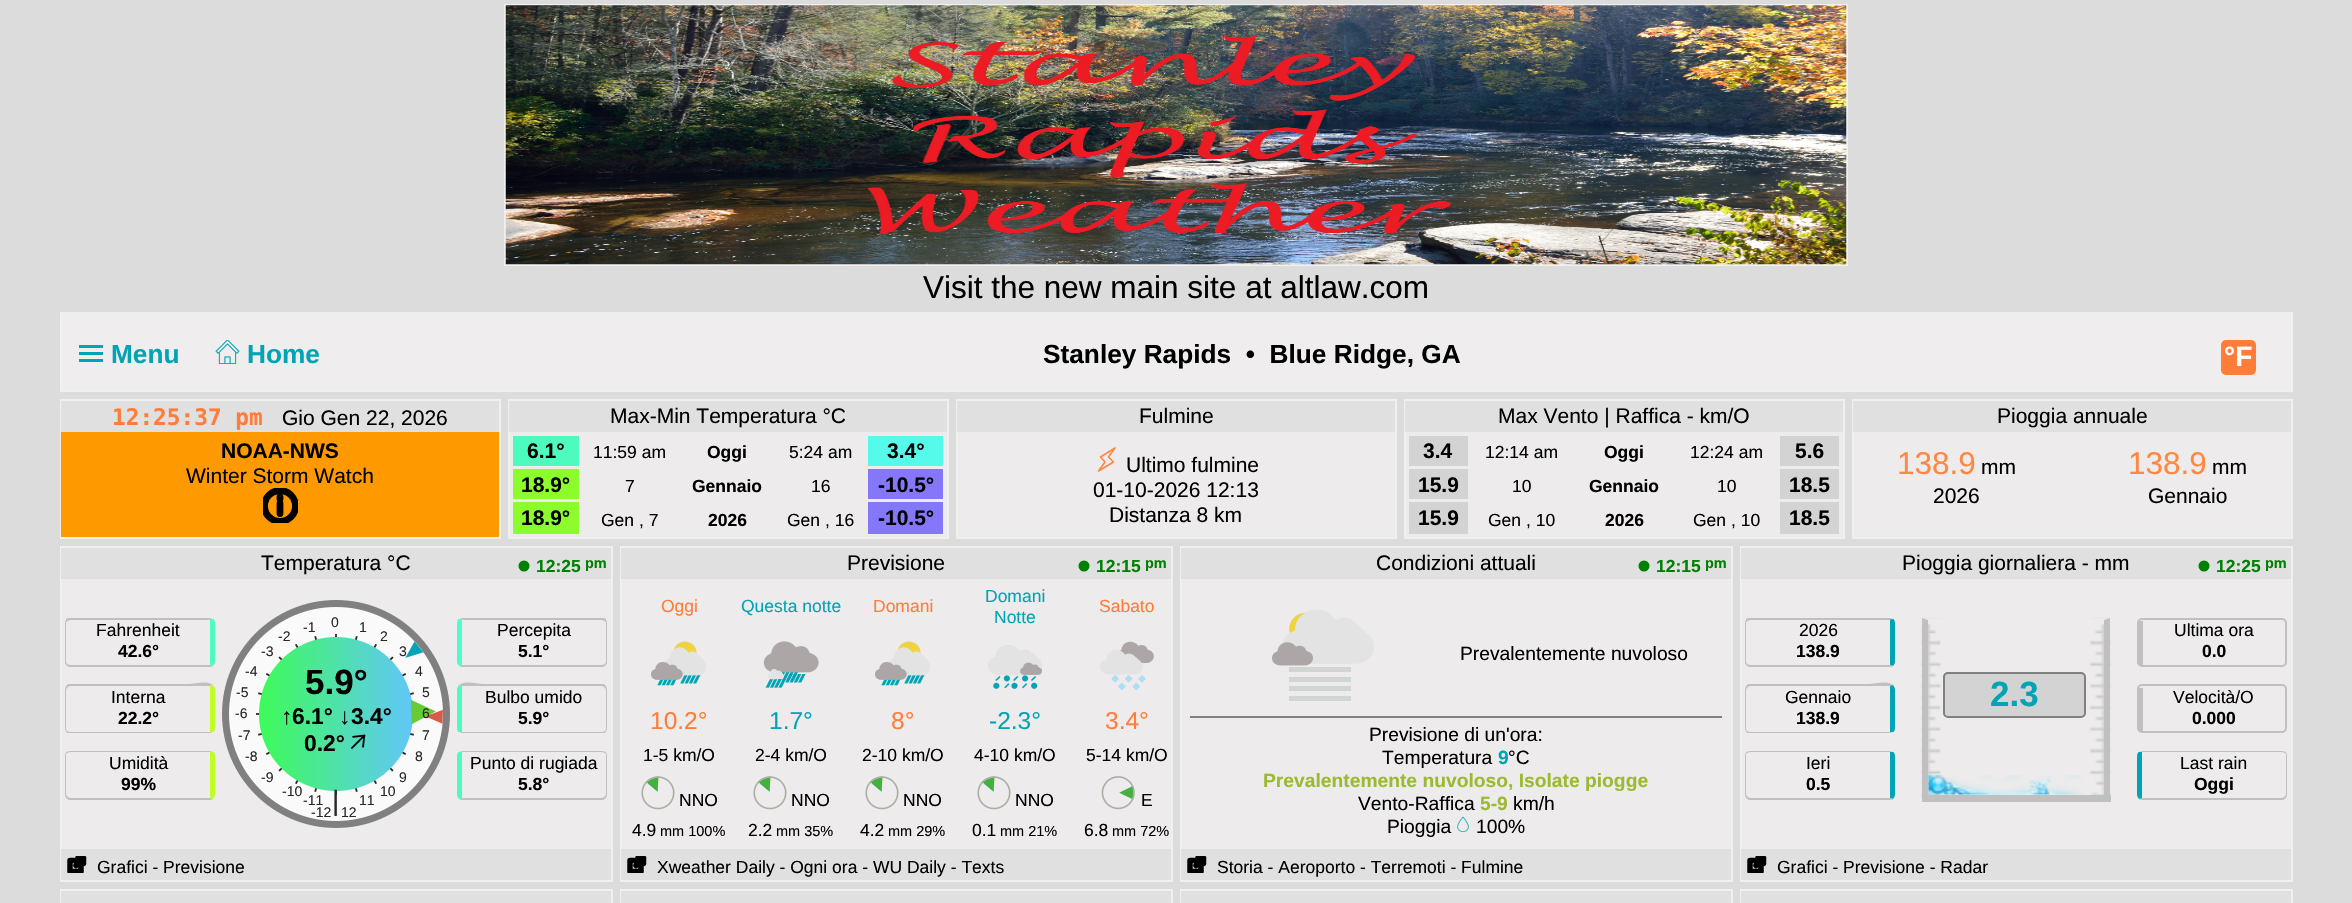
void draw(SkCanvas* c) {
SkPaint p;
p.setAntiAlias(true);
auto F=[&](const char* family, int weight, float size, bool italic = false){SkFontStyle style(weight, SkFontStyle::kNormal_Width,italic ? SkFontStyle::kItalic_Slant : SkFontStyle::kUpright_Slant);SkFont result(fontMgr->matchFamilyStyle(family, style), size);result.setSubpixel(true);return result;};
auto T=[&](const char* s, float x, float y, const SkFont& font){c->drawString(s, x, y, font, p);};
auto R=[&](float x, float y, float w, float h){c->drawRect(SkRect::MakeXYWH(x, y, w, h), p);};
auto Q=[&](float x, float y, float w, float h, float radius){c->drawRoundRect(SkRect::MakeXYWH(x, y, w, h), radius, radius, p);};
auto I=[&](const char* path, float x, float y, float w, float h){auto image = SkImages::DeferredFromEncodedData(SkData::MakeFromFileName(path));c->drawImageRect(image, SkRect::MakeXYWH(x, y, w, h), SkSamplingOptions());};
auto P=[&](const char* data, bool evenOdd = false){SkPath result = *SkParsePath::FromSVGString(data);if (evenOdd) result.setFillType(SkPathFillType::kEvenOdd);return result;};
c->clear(0xffdcdcdc);
p.setStroke(true);
p.setStrokeWidth(2);
p.setColor(0xfff0f0f0);
c->drawRect(SkRect::MakeXYWH(505,5,1342,260),p);
I("1.png",505,5,1342,260);
auto f1 = F("Liberation Sans",400,31.5);
p.setStroke(false);
p.setColor(0xff000000);
T("Visit the new main site at altlaw.com",923,298,f1);
p.setStroke(true);
p.setColor(0xfff0f0f0);
c->drawRect(SkRect::MakeXYWH(61,313,2231,78),p);
p.setStroke(false);
p.setColor(0xffefeded);
R(61,313,2230,77);
p.setColor(0xff01a4b4);
R(79,345,24,3);
auto f2 = F("Liberation Sans",700,26.25);
T("Menu",111,363,f2);
R(79,352,24,3);
R(79,359,24,3);
I("2.png",215,340,25,24);
T("Home",247,363,f2);
p.setColor(0xff000000);
T("Stanley Rapids  •  Blue Ridge, GA",1043,363,f2);
p.setColor(0xffff7c39);
Q(2221,340,35,35,5);
auto f3 = F("Liberation Sans",700,28);
p.setColor(0xffffffff);
T("°F",2224,366,f3);
p.setStroke(true);
p.setColor(0xfff0f0f0);
c->drawRect(SkRect::MakeXYWH(61,400,439,138),p);
p.setStroke(false);
p.setColor(0xffe0e0e0);
R(61,401,438,31);
auto f4 = F("DejaVu Sans Mono",700,22.75);
p.setColor(0xffff7c39);
T("12:25:37 pm",112,425,f4);
auto f5 = F("Liberation Sans",400,21);
p.setColor(0xff000000);
T("Gio Gen 22, 2026",282,425,f5);
p.setColor(0xffff9900);
R(61,432,438,105);
auto f6 = F("Liberation Sans",700,21);
p.setColor(0xff000000);
T("NOAA-NWS",221,458,f6);
T("Winter Storm Watch",186,483,f5);
p.setStroke(true);
p.setStrokeWidth(6.8);
p.setStrokeCap(SkPaint::kRound_Cap);
p.setStrokeJoin(SkPaint::kRound_Join);
c->drawPath(P("M280 503.5v10m0-16.5v2"),p);
c->save();
c->clipRect(SkRect::MakeXYWH(263,488,35,35));
p.setStrokeCap(SkPaint::kButt_Cap);
p.setStrokeJoin(SkPaint::kMiter_Join);
c->drawCircle(280,506,15.5,p);
c->restore();
p.setStroke(false);
p.setColor(0xffedebeb);
R(510,432,437,105);
p.setStroke(true);
p.setStrokeWidth(2);
p.setColor(0xfff0f0f0);
c->drawRect(SkRect::MakeXYWH(509,400,439,138),p);
p.setStroke(false);
p.setColor(0xffe0e0e0);
R(509,401,438,31);
p.setColor(0xff000000);
T("Max-Min Temperatura °C",610,423,f5);
p.setColor(0xff4dfbbe);
R(513,436,66,30);
p.setColor(0xff000000);
T("6.1°",527,458,f6);
auto f7 = F("Liberation Sans",400,17.5);
T("11:59 am",593,458,f7);
auto f8 = F("Liberation Sans",700,17.5);
T("Oggi",707,458,f8);
T("5:24 am",789,458,f7);
p.setColor(0xff55faeb);
R(868,436,75,30);
p.setColor(0xff000000);
T("3.4°",887,458,f6);
p.setColor(0xff8dfc2d);
R(513,469,66,30);
p.setColor(0xff000000);
T("18.9°",521,492,f6);
T("7",625,492,f7);
T("Gennaio",692,492,f8);
T("16",811,492,f7);
p.setColor(0xff8477f9);
R(868,469,75,30);
p.setColor(0xff000000);
T("-10.5°",878,492,f6);
p.setColor(0xff8dfc2d);
R(513,502,66,32);
p.setColor(0xff000000);
T("18.9°",521,525,f6);
T("Gen , 7",601,526,f7);
T("2026",708,526,f8);
T("Gen , 16",787,526,f7);
p.setColor(0xff8477f9);
R(868,502,75,32);
p.setColor(0xff000000);
T("-10.5°",878,525,f6);
p.setColor(0xffedebeb);
R(958,432,437,105);
p.setStroke(true);
p.setColor(0xfff0f0f0);
c->drawRect(SkRect::MakeXYWH(957,400,439,138),p);
p.setStroke(false);
p.setColor(0xffe0e0e0);
R(957,401,438,31);
p.setColor(0xff000000);
T("Fulmine",1139,423,f5);
p.setStroke(true);
p.setStrokeWidth(1.6);
p.setStrokeCap(SkPaint::kRound_Cap);
p.setStrokeJoin(SkPaint::kRound_Join);
p.setColor(0xffff8841);
c->drawPath(P("M1108.5 457l6.5-9l-14.5 9l4.5 5l-6.5 9l15-9z"),p);
p.setStroke(false);
p.setColor(0xff000000);
T("Ultimo fulmine",1126,472,f5);
T("01-10-2026 12:13",1093,497,f5);
T("Distanza 8 km",1109,522,f5);
p.setColor(0xffedebeb);
R(1406,432,437,105);
p.setStroke(true);
p.setStrokeWidth(2);
p.setStrokeCap(SkPaint::kButt_Cap);
p.setStrokeJoin(SkPaint::kMiter_Join);
p.setColor(0xfff0f0f0);
c->drawRect(SkRect::MakeXYWH(1405,400,439,138),p);
p.setStroke(false);
p.setColor(0xffe0e0e0);
R(1405,401,438,31);
p.setColor(0xff000000);
T("Max Vento | Raffica - km/O",1498,423,f5);
p.setColor(0xffd3d3d3);
R(1409,436,59,30);
p.setColor(0xff000000);
T("3.4",1423,458,f6);
T("12:14 am",1485,458,f7);
T("Oggi",1604,458,f8);
T("12:24 am",1690,458,f7);
p.setColor(0xffd3d3d3);
R(1780,436,59,30);
p.setColor(0xff000000);
T("5.6",1795,458,f6);
p.setColor(0xffd3d3d3);
R(1409,469,59,30);
p.setColor(0xff000000);
T("15.9",1418,492,f6);
T("10",1512,492,f7);
T("Gennaio",1589,492,f8);
T("10",1717,492,f7);
p.setColor(0xffd3d3d3);
R(1780,469,59,30);
p.setColor(0xff000000);
T("18.5",1789,492,f6);
p.setColor(0xffd3d3d3);
R(1409,502,59,32);
p.setColor(0xff000000);
T("15.9",1418,525,f6);
T("Gen , 10",1488,526,f7);
T("2026",1605,526,f8);
T("Gen , 10",1693,526,f7);
p.setColor(0xffd3d3d3);
R(1780,502,59,32);
p.setColor(0xff000000);
T("18.5",1789,525,f6);
p.setColor(0xffedebeb);
R(1854,432,437,105);
p.setStroke(true);
p.setColor(0xfff0f0f0);
c->drawRect(SkRect::MakeXYWH(1853,400,439,138),p);
p.setStroke(false);
p.setColor(0xffe0e0e0);
R(1853,401,438,31);
p.setColor(0xff000000);
T("Pioggia annuale",1997,423,f5);
p.setColor(0xffff8841);
T("138.9",1897,474,f1);
p.setColor(0xff000000);
T("mm",1981,474,f5);
T("2026",1933,503,f5);
p.setColor(0xffff8841);
T("138.9",2128,474,f1);
p.setColor(0xff000000);
T("mm",2212,474,f5);
T("Gennaio",2148,503,f5);
p.setColor(0xffedebeb);
R(62,579,549,270);
p.setStroke(true);
p.setColor(0xfff0f0f0);
c->drawRect(SkRect::MakeXYWH(61,547,551,334),p);
p.setStroke(false);
p.setColor(0xffe0e0e0);
R(61,548,550,31);
p.setColor(0xff000000);
T("Temperatura °C",261,570,f5);
p.setColor(0xff008000);
T("12:25",536,572,f8);
c->drawCircle(524,566,5.5,p);
auto f9 = F("Liberation Sans",700,14.5);
T("pm",585,568,f9);
p.setColor(0xffc0c0c0);
c->drawPath(P("M70 618c-2 0-3 0-4 1l2 2l2-1h138l5-1l-3-1z"),p);
p.setColor(0xff4dfbbe);
c->drawPath(P("M213 619c1 0 2 2 2 4v39c0 1-1 3-2 4l-3-1v-45h-2z"),p);
p.setColor(0xffc0c0c0);
c->drawPath(P("M69 667l-3-2l1-1l3 1h140l3 1l-2 1z"),p);
c->drawPath(P("M66 619c0 1-1 3-1 4v39c0 1 0 2 1 3l1-1l-1-2v-39c0-1 1-2 2-2z"),p);
p.setColor(0xff000000);
T("Fahrenheit",96,636,f7);
T("42.6°",118,657,f8);
p.setColor(0xffc0c0c0);
c->drawPath(P("M70 686l-2 1l-2-1l2-2h120c8 0 18-4 25 1l-3 1z"),p);
p.setColor(0xffc0fd25);
c->drawPath(P("M213 685c1 1 2 3 2 5v38c0 2-1 4-2 4h-3v-46z"),p);
p.setColor(0xffc0c0c0);
c->drawPath(P("M213 732l-3 1h-140c-1 0-3 0-4-1l1-1l3 1h140z"),p);
c->drawPath(P("M66 732c0-1-1-2-1-4v-38c0-2 1-3 1-4l2 1c-1 1-2 2-2 3v38c0 1 0 2 1 3z"),p);
p.setColor(0xff000000);
T("Interna",111,703,f7);
T("22.2°",118,724,f8);
p.setColor(0xffc0c0c0);
c->drawPath(P("M70 751c-2 0-3 1-4 1l1 1l3-1h140h3l-3-1z"),p);
p.setColor(0xffc0fd25);
c->drawPath(P("M213 752c1 0 2 2 2 4v38c0 2-1 4-2 5l-3-1v-46z"),p);
p.setColor(0xffc0c0c0);
c->drawPath(P("M69 800l-3-2l2-1l2 1h140l3 1l-2 1z"),p);
c->drawPath(P("M66 752c0 1-1 2-1 4v38c0 2 1 3 1 4l2-1c-1-1-2-2-2-3v-38c0-1 0-2 1-3z"),p);
p.setColor(0xff000000);
T("Umidità",109,769,f7);
T("99%",121,790,f8);
I("3.png",222,600,228,228);
auto f10 = F("Liberation Sans",400,14);
p.setColor(0xff282828);
T("-1",303,632,f10);
T("0",331,627,f10);
T("1",359,632,f10);
T("-2",278,641,f10);
T("2",380,641,f10);
T("-3",261,656,f10);
T("3",399,656,f10);
T("-5",236,697,f10);
T("-4",245,676,f10);
auto f11 = F("Liberation Sans",700,35);
p.setColor(0xff000000);
T("5.9°",305,694,f11);
auto f12 = F("Liberation Sans",400,22.75);
T("↑",281,724,f12);
auto f13 = F("Liberation Sans",700,22.75);
T("6.1°",292,724,f13);
T("↓",339,724,f12);
T("3.4°",351,724,f13);
T("0.2°",304,751,f13);
I("4.png",351,734,15,15);
p.setColor(0xff282828);
T("4",415,676,f10);
T("5",422,697,f10);
T("-6",235,718,f10);
T("6",422,718,f10);
T("-7",238,740,f10);
T("7",422,740,f10);
T("-8",245,761,f10);
T("8",415,761,f10);
T("-9",261,782,f10);
T("9",399,782,f10);
T("-10",282,796,f10);
T("-11",303,805,f10);
auto f14 = F("Liberation Sans",400,28);
T("|",332,810,f14);
T("11",359,805,f10);
T("10",380,796,f10);
T("-12",311,817,f10);
T("12",341,817,f10);
p.setColor(0xffc0c0c0);
c->drawPath(P("M462 618l-3 1l5 1h138l2 1l2-2c-1-1-2-1-4-1z"),p);
c->drawPath(P("M606 619c0 1 1 3 1 4v39c0 1 0 2-1 3l-1-1l1-2v-39c0-1-1-2-2-2z"),p);
c->drawPath(P("M461 667l-2-1l3-1h140l3-1l1 1l-3 2z"),p);
p.setColor(0xff50fbcd);
c->drawPath(P("M462 620h2l-5-1c-1 0-2 2-2 4v39c0 1 1 3 2 4l3-1z"),p);
p.setColor(0xff000000);
T("Percepita",497,636,f7);
T("5.1°",518,657,f8);
p.setColor(0xffc0c0c0);
c->drawPath(P("M462 686l-3-1c7-5 17-1 25-1h120l2 2l-2 1l-2-1z"),p);
c->drawPath(P("M606 686c0 1 1 2 1 4v38c0 2-1 3-1 4l-1-1c1-1 1-2 1-3v-38c0-1-1-2-2-3z"),p);
c->drawPath(P("M606 732c-1 1-3 1-4 1h-140l-3-1h3h140l3-1z"),p);
p.setColor(0xff4dfbbe);
c->drawPath(P("M462 686v46h-3c-1 0-2-2-2-4v-38c0-2 1-4 2-5z"),p);
p.setColor(0xff000000);
T("Bulbo umido",485,703,f7);
T("5.9°",518,724,f8);
p.setColor(0xffc0c0c0);
c->drawPath(P("M462 751l-3 1h3h140l3 1l1-1c-1 0-2-1-4-1z"),p);
c->drawPath(P("M606 752c0 1 1 2 1 4v38c0 2-1 3-1 4l-2-1c1-1 2-2 2-3v-38c0-1 0-2-1-3z"),p);
c->drawPath(P("M461 800l-2-1l3-1h140l2-1l2 1l-3 2z"),p);
p.setColor(0xff4dfbbe);
c->drawPath(P("M459 752c-1 0-2 2-2 4v38c0 2 1 4 2 5l3-1v-46z"),p);
p.setColor(0xff000000);
T("Punto di rugiada",470,769,f7);
T("5.8°",518,790,f8);
p.setColor(0xffe0e0e0);
R(61,849,550,31);
p.setColor(0xff000000);
T("Grafici - Previsione",97,873,f7);
c->save();
c->clipRect(SkRect::MakeXYWH(67,856,21,17));
p.setStroke(true);
p.setStrokeWidth(5.5);
p.setStrokeCap(SkPaint::kRound_Cap);
p.setStrokeJoin(SkPaint::kRound_Join);
c->drawPath(P("M76 860.5h-6v11h11v-6m-3-7.5h5.5v5.5m0-5.5l-7.5 7.5"),p);
c->restore();
p.setStroke(false);
p.setColor(0xffedebeb);
R(622,579,549,270);
p.setStroke(true);
p.setStrokeWidth(2);
p.setStrokeCap(SkPaint::kButt_Cap);
p.setStrokeJoin(SkPaint::kMiter_Join);
p.setColor(0xfff0f0f0);
c->drawRect(SkRect::MakeXYWH(621,547,551,334),p);
p.setStroke(false);
p.setColor(0xffe0e0e0);
R(621,548,550,31);
p.setColor(0xff000000);
T("Previsione",847,570,f5);
p.setColor(0xff008000);
T("12:15",1096,572,f8);
c->drawCircle(1084,566,5.5,p);
T("pm",1145,568,f9);
p.setColor(0xffff7c39);
T("Oggi",661,612,f7);
p.setColor(0xff01a4b4);
T("Questa notte",741,612,f7);
p.setColor(0xffff7c39);
T("Domani",873,612,f7);
p.setColor(0xff01a4b4);
T("Domani",985,602,f7);
T("Notte",994,623,f7);
p.setColor(0xffff7c39);
T("Sabato",1099,612,f7);
I("5.png",651,641,55,45);
I("6.png",763,641,56,47);
I("5.png",875,641,55,45);
I("7.png",988,645,54,44);
I("8.png",1100,641,54,49);
auto f15 = F("Liberation Sans",400,24.5);
T("10.2°",650,729,f15);
p.setColor(0xff01a4b4);
T("1.7°",769,729,f15);
p.setColor(0xffff7c39);
T("8°",891,729,f15);
p.setColor(0xff01a4b4);
T("-2.3°",989,729,f15);
p.setColor(0xffff7c39);
T("3.4°",1105,729,f15);
p.setColor(0xff000000);
T("1-5 km/O",643,761,f7);
T("2-4 km/O",755,761,f7);
T("2-10 km/O",862,761,f7);
T("4-10 km/O",974,761,f7);
T("5-14 km/O",1086,761,f7);
I("9.png",641,776,34,34);
T("NNO",679,806,f7);
I("9.png",753,776,34,34);
T("NNO",791,806,f7);
I("9.png",865,776,34,34);
T("NNO",903,806,f7);
I("9.png",977,776,34,34);
T("NNO",1015,806,f7);
I("10.png",1101,776,34,34);
T("E",1141,806,f7);
T("4.9",632,836,f7);
auto f16 = F("Liberation Sans",400,14.5);
T("mm 100%",660,836,f16);
T("2.2",748,836,f7);
T("mm 35%",776,836,f16);
T("4.2",860,836,f7);
T("mm 29%",888,836,f16);
T("0.1",972,836,f7);
T("mm 21%",1000,836,f16);
T("6.8",1084,836,f7);
T("mm 72%",1112,836,f16);
p.setColor(0xffe0e0e0);
R(621,849,550,31);
p.setColor(0xff000000);
T("Xweather Daily - Ogni ora - WU Daily - Texts",657,873,f7);
c->save();
c->clipRect(SkRect::MakeXYWH(627,856,21,17));
p.setStroke(true);
p.setStrokeWidth(5.5);
p.setStrokeCap(SkPaint::kRound_Cap);
p.setStrokeJoin(SkPaint::kRound_Join);
c->drawPath(P("M636 860.5h-6v11h11v-6m-3-7.5h5.5v5.5m0-5.5l-7.5 7.5"),p);
c->restore();
p.setStroke(false);
p.setColor(0xffedebeb);
R(1182,579,549,270);
p.setStroke(true);
p.setStrokeWidth(2);
p.setStrokeCap(SkPaint::kButt_Cap);
p.setStrokeJoin(SkPaint::kMiter_Join);
p.setColor(0xfff0f0f0);
c->drawRect(SkRect::MakeXYWH(1181,547,551,334),p);
p.setStroke(false);
p.setColor(0xffe0e0e0);
R(1181,548,550,31);
p.setColor(0xff000000);
T("Condizioni attuali",1376,570,f5);
p.setColor(0xff008000);
T("12:15",1656,572,f8);
c->drawCircle(1644,566,5.5,p);
T("pm",1705,568,f9);
I("11.png",1272,610,102,91);
auto f17 = F("Liberation Sans",400,19.25);
p.setColor(0xff000000);
T("Prevalentemente nuvoloso",1460,660,f17);
p.setColor(0xff808080);
R(1190,716,532,2);
p.setColor(0xff000000);
T("Previsione di un'ora:",1369,741,f17);
T("Temperatura",1382,764,f17);
auto f18 = F("Liberation Sans",700,19.25);
p.setColor(0xff01a4b4);
T("9",1498,764,f18);
p.setColor(0xff000000);
T("°C",1508,764,f17);
p.setColor(0xff9aba2f);
T("Prevalentemente nuvoloso, Isolate piogge",1263,787,f18);
p.setColor(0xff000000);
T("Vento-Raffica",1358,810,f17);
p.setColor(0xff9aba2f);
T("5-9",1480,810,f18);
p.setColor(0xff000000);
T("km/h",1513,810,f17);
T("Pioggia",1387,833,f17);
I("12.png",1457,816,12,17);
T("100%",1476,833,f17);
p.setColor(0xffe0e0e0);
R(1181,849,550,31);
p.setColor(0xff000000);
T("Storia - Aeroporto - Terremoti - Fulmine",1217,873,f7);
c->save();
c->clipRect(SkRect::MakeXYWH(1187,856,21,17));
p.setStroke(true);
p.setStrokeWidth(5.5);
p.setStrokeCap(SkPaint::kRound_Cap);
p.setStrokeJoin(SkPaint::kRound_Join);
c->drawPath(P("M1196 860.5h-6v11h11v-6m-3-7.5h5.5v5.5m0-5.5l-7.5 7.5"),p);
c->restore();
p.setStroke(false);
p.setColor(0xffedebeb);
R(1742,579,549,270);
p.setStroke(true);
p.setStrokeWidth(2);
p.setStrokeCap(SkPaint::kButt_Cap);
p.setStrokeJoin(SkPaint::kMiter_Join);
p.setColor(0xfff0f0f0);
c->drawRect(SkRect::MakeXYWH(1741,547,551,334),p);
p.setStroke(false);
p.setColor(0xffe0e0e0);
R(1741,548,550,31);
p.setColor(0xff000000);
T("Pioggia giornaliera - mm",1902,570,f5);
p.setColor(0xff008000);
T("12:25",2216,572,f8);
c->drawCircle(2204,566,5.5,p);
T("pm",2265,568,f9);
p.setColor(0xffc0c0c0);
c->drawPath(P("M1750 618c-2 0-3 0-4 1l2 2l2-1h138l5-1l-3-1z"),p);
p.setColor(0xff01a4b4);
c->drawPath(P("M1893 619c1 0 2 2 2 4v39c0 1-1 3-2 4l-3-1v-45h-2z"),p);
p.setColor(0xffc0c0c0);
c->drawPath(P("M1749 667l-3-2l1-1l3 1h140l3 1l-2 1z"),p);
c->drawPath(P("M1746 619c0 1-1 3-1 4v39c0 1 0 2 1 3l1-1l-1-2v-39c0-1 1-2 2-2z"),p);
p.setColor(0xff000000);
T("2026",1799,636,f7);
T("138.9",1796,657,f8);
p.setColor(0xffc0c0c0);
c->drawPath(P("M1750 686l-2 1l-2-1l2-2h120c8 0 18-4 25 1l-3 1z"),p);
p.setColor(0xff01a4b4);
c->drawPath(P("M1893 685c1 1 2 3 2 5v38c0 2-1 4-2 4h-3v-46z"),p);
p.setColor(0xffc0c0c0);
c->drawPath(P("M1893 732l-3 1h-140c-1 0-3 0-4-1l1-1l3 1h140z"),p);
c->drawPath(P("M1746 732c0-1-1-2-1-4v-38c0-2 1-3 1-4l2 1c-1 1-2 2-2 3v38c0 1 0 2 1 3z"),p);
p.setColor(0xff000000);
T("Gennaio",1785,703,f7);
T("138.9",1796,724,f8);
p.setColor(0xffc0c0c0);
c->drawPath(P("M1750 751c-2 0-3 1-4 1l1 1l3-1h140h3l-3-1z"),p);
p.setColor(0xff01a4b4);
c->drawPath(P("M1893 752c1 0 2 2 2 4v38c0 2-1 4-2 5l-3-1v-46z"),p);
p.setColor(0xffc0c0c0);
c->drawPath(P("M1749 800l-3-2l2-1l2 1h140l3 1l-2 1z"),p);
c->drawPath(P("M1746 752c0 1-1 2-1 4v38c0 2 1 3 1 4l2-1c-1-1-2-2-2-3v-38c0-1 0-2 1-3z"),p);
p.setColor(0xff000000);
T("Ieri",1806,769,f7);
T("0.5",1806,790,f8);
I("13.png",1921,617,190,181);
p.setStroke(true);
p.setStrokeWidth(1.8);
p.setColor(0xffe9ebf1);
p.setPathEffect(SkDashPathEffect::Make({{1.75f,1.75f}}, 0));
c->drawPath(P("M1921.5 618.5h189"),p);
p.setPathEffect(nullptr);
p.setStroke(false);
p.setColor(0xffc0c0c0);
c->drawPath(P("M2110 618v184l-6-8v-174z"),p);
R(1922,795,189,7);
c->drawPath(P("M1922 802v-184l6 2v174z"),p);
p.setColor(0xffd3d3d3);
c->drawRoundRect(SkRect::MakeXYWH(1944,673,141,44),4,4,p);
p.setStroke(true);
p.setStrokeWidth(2);
p.setColor(0xff808080);
c->drawRoundRect(SkRect::MakeXYWH(1944,673,141,44),4,4,p);
p.setStroke(false);
p.setColor(0xff01a4b4);
T("2.3",1990,706,f11);
I("14.png",1928,775,176,20);
p.setStroke(true);
p.setColor(0xffc0c0c0);
c->drawRoundRect(SkRect::MakeXYWH(2138,619,148,47),4,4,p);
p.setStroke(false);
R(2139,621,4,44);
p.setColor(0xff000000);
T("Ultima ora",2174,636,f7);
T("0.0",2202,657,f8);
p.setStroke(true);
p.setColor(0xffc0c0c0);
c->drawRoundRect(SkRect::MakeXYWH(2138,685,148,47),4,4,p);
p.setStroke(false);
R(2139,688,4,44);
p.setColor(0xff000000);
T("Velocità/O",2173,703,f7);
T("0.000",2192,724,f8);
p.setColor(0xffc0c0c0);
c->drawPath(P("M2142 751l-3 1h3h140l3 1l1-1c-1 0-2-1-4-1z"),p);
c->drawPath(P("M2286 752c0 1 1 2 1 4v38c0 2-1 3-1 4l-2-1c1-1 2-2 2-3v-38c0-1 0-2-1-3z"),p);
c->drawPath(P("M2141 800l-2-1l3-1h140l2-1l2 1l-3 2z"),p);
p.setColor(0xff01a4b4);
c->drawPath(P("M2139 752c-1 0-2 2-2 4v38c0 2 1 4 2 5l3-1v-46z"),p);
p.setColor(0xff000000);
T("Last rain",2180,769,f7);
T("Oggi",2194,790,f8);
p.setColor(0xffe0e0e0);
R(1741,849,550,31);
p.setColor(0xff000000);
T("Grafici - Previsione - Radar",1777,873,f7);
c->save();
c->clipRect(SkRect::MakeXYWH(1747,856,21,17));
p.setStroke(true);
p.setStrokeWidth(5.5);
p.setStrokeCap(SkPaint::kRound_Cap);
p.setStrokeJoin(SkPaint::kRound_Join);
c->drawPath(P("M1756 860.5h-6v11h11v-6m-3-7.5h5.5v5.5m0-5.5l-7.5 7.5"),p);
c->restore();
p.setStrokeWidth(2);
p.setStrokeCap(SkPaint::kButt_Cap);
p.setStrokeJoin(SkPaint::kMiter_Join);
p.setColor(0xfff0f0f0);
c->drawRect(SkRect::MakeXYWH(61,890,551,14),p);
p.setStroke(false);
p.setColor(0xffe0e0e0);
R(61,891,550,12);
p.setStroke(true);
p.setColor(0xfff0f0f0);
c->drawRect(SkRect::MakeXYWH(621,890,551,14),p);
p.setStroke(false);
p.setColor(0xffe0e0e0);
R(621,891,550,12);
p.setStroke(true);
p.setColor(0xfff0f0f0);
c->drawRect(SkRect::MakeXYWH(1181,890,551,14),p);
p.setStroke(false);
p.setColor(0xffe0e0e0);
R(1181,891,550,12);
p.setStroke(true);
p.setColor(0xfff0f0f0);
c->drawRect(SkRect::MakeXYWH(1741,890,551,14),p);
p.setStroke(false);
p.setColor(0xffe0e0e0);
R(1741,891,550,12);
}
